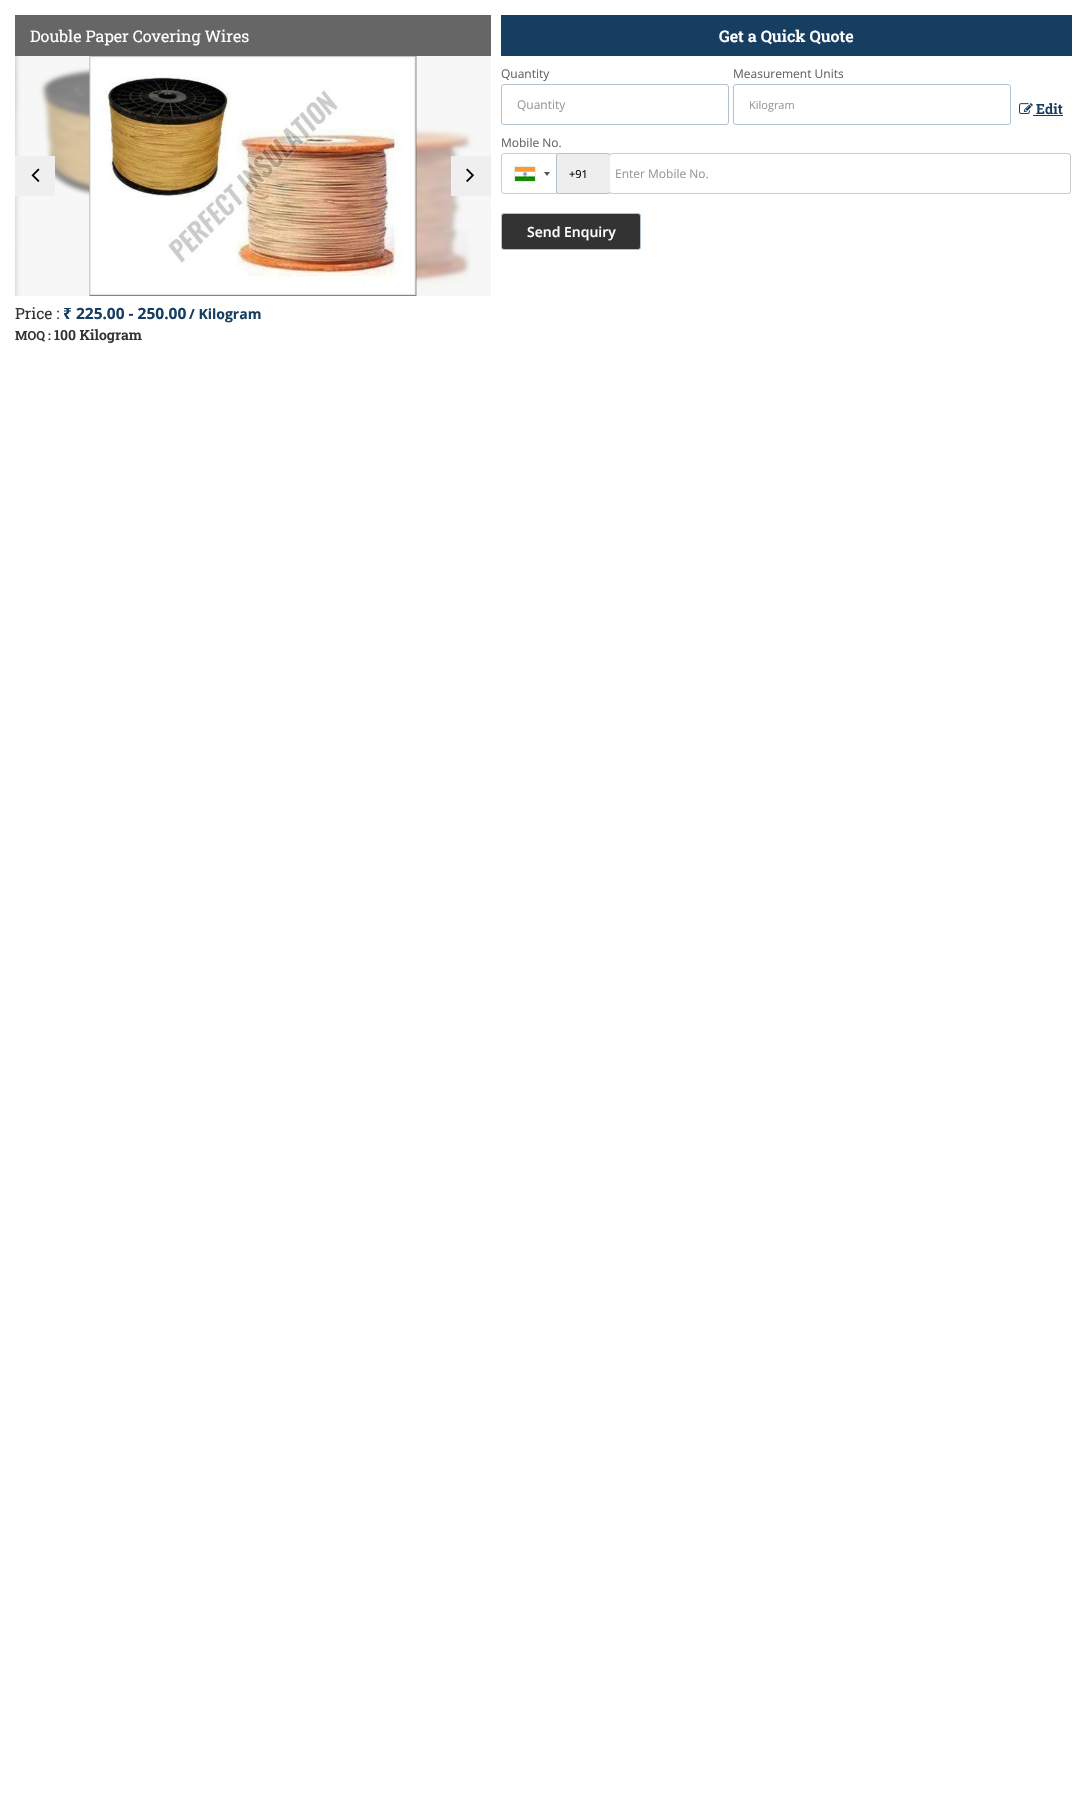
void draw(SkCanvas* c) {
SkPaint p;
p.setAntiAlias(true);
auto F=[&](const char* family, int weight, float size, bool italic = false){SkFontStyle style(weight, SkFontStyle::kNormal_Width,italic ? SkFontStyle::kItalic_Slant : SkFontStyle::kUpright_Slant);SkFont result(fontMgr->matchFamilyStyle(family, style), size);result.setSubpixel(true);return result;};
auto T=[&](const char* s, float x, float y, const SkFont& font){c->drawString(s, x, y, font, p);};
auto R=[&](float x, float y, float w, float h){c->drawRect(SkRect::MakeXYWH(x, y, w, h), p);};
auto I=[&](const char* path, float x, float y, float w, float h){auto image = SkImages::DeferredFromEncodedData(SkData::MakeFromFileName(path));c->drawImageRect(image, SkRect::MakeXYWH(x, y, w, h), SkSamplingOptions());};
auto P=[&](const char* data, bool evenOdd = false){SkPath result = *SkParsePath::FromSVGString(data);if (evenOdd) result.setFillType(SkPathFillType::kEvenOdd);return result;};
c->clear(0xffffffff);
p.setColor(0xff666666);
R(15,15,476,41);
auto f1 = F("Roboto Slab",400,16);
p.setColor(0xffffffff);
T("Double Paper Covering Wires",30,42,f1);
I("1.png",15,56,5,240);
c->save();
c->clipRect(SkRect::MakeXYWH(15,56,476,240));
p.setColor(0x80ffffff);
p.setMaskFilter(SkMaskFilter::MakeBlur(kNormal_SkBlurStyle, 2));
c->drawRect(SkRect::MakeXYWH(-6,46,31,260),p);
p.setMaskFilter(nullptr);
c->restore();
I("2.png",15,56,465,240);
p.setColor(0xff163e61);
R(501,15,571,41);
p.setStroke(true);
p.setStrokeWidth(1);
p.setColor(0xffb2c1cf);
c->drawRoundRect(SkRect::MakeXYWH(501.5,84.5,227,40),2.5,2.5,p);
p.setStroke(false);
p.setColor(0xff333333);
c->drawRoundRect(SkRect::MakeXYWH(501.5,213.5,139,36),2.5,2.5,p);
p.setStroke(true);
p.setColor(0xffb2c1cf);
c->drawRoundRect(SkRect::MakeXYWH(501.5,213.5,139,36),2.5,2.5,p);
c->save();
c->clipRect(SkRect::MakeXYWH(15,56,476,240));
p.setStroke(false);
p.setColor(0x80ffffff);
p.setMaskFilter(SkMaskFilter::MakeBlur(kNormal_SkBlurStyle, 2));
c->drawRect(SkRect::MakeXYWH(15,46,485,260),p);
p.setMaskFilter(nullptr);
c->restore();
I("4.png",489,211,2,15);
p.setColor(0x08000000);
R(15,56,475,240);
I("3.png",89,56,328,240);
R(490,56,1,240);
p.setColor(0xffefefef);
R(15,156,40,40);
I("5.png",31,168,9,14);
R(451,156,40,40);
I("6.png",466,168,8,14);
auto f2 = F("Roboto Slab",400,15.5);
p.setColor(0xff333333);
T("Price :",15,319,f2);
auto f3 = F("Noto Sans",700,15.5);
p.setColor(0xff163e61);
T("₹ 225.00 - 250.00",63,319,f3);
auto f4 = F("Open Sans",700,14);
T("/ Kilogram",189,319,f4);
auto f5 = F("Roboto Slab",600,12.5);
p.setColor(0xff333333);
T("MOQ :",15,340,f5);
auto f6 = F("Roboto Slab",600,14);
T("100 Kilogram",54,340,f6);
auto f7 = F("Roboto Slab",600,16);
p.setColor(0xffffffff);
T("Get a Quick Quote",719,42,f7);
auto f8 = F("Open Sans",400,12);
p.setColor(0xff666666);
T("Quantity",501,78,f8);
p.setColor(0xff999999);
T("Quantity",517,109,f8);
p.setColor(0xff666666);
T("Measurement Units",733,78,f8);
p.setStroke(true);
p.setColor(0xffb2c1cf);
c->drawRoundRect(SkRect::MakeXYWH(733.5,84.5,277,40),2.5,2.5,p);
auto f9 = F("Open Sans",400,11);
p.setStroke(false);
p.setColor(0xff999999);
T("Kilogram",749,109,f9);
I("7.png",1019,103,14,11);
p.setColor(0xff163e61);
T("Edit",1036,114,f6);
R(1033,115,30,1);
p.setColor(0xff666666);
T("Mobile No.",501,147,f8);
p.setStroke(true);
p.setColor(0xffcccccc);
c->drawPath(P("M504 153.5h52.5v40h-52.5c-1.5 0-2.5-1-2.5-2.5v-35c0-1.5 1-2.5 2.5-2.5z"),p);
p.setStroke(false);
p.setColor(0xff888888);
p.setMaskFilter(SkMaskFilter::MakeBlur(kNormal_SkBlurStyle, .5));
c->drawRect(SkRect::MakeXYWH(515,167,20,14),p);
p.setMaskFilter(nullptr);
I("8.png",515,167,20,14);
p.setColor(0xff555555);
c->drawPath(P("M544 172h6l-3 4z"),p);
p.setColor(0xffeeeeee);
c->drawRoundRect(SkRect::MakeXYWH(556.5,153.5,54,40),2.5,2.5,p);
p.setStroke(true);
p.setColor(0xffb2c1cf);
c->drawRoundRect(SkRect::MakeXYWH(556.5,153.5,54,40),2.5,2.5,p);
p.setStroke(false);
p.setColor(0xff000000);
T("+91",569,178,f9);
p.setColor(0xffffffff);
c->drawPath(P("M613 154h455c1 0 2 1 2 2v35c0 1-1 2-2 2h-455c-2 0-3-1-3-2v-35c0-1 1-2 3-2z"),p);
p.setColor(0xffcccccc);
c->drawPath(P("M613 153h455c2 0 3 1 3 3v35c0 2-1 3-3 3h-455c-2 0-3-1-3-3v-35c0-2 1-3 3-3zm0 1h455c1 0 2 1 2 2v35c0 1-1 2-2 2h-455c-2 0-3-1-3-2v-35c0-1 1-2 3-2z",true),p);
p.setColor(0xff999999);
T("Enter Mobile No.",615,178,f8);
auto f10 = F("Open Sans",600,14);
p.setColor(0xffffffff);
T("Send Enquiry",527,237,f10);
}
